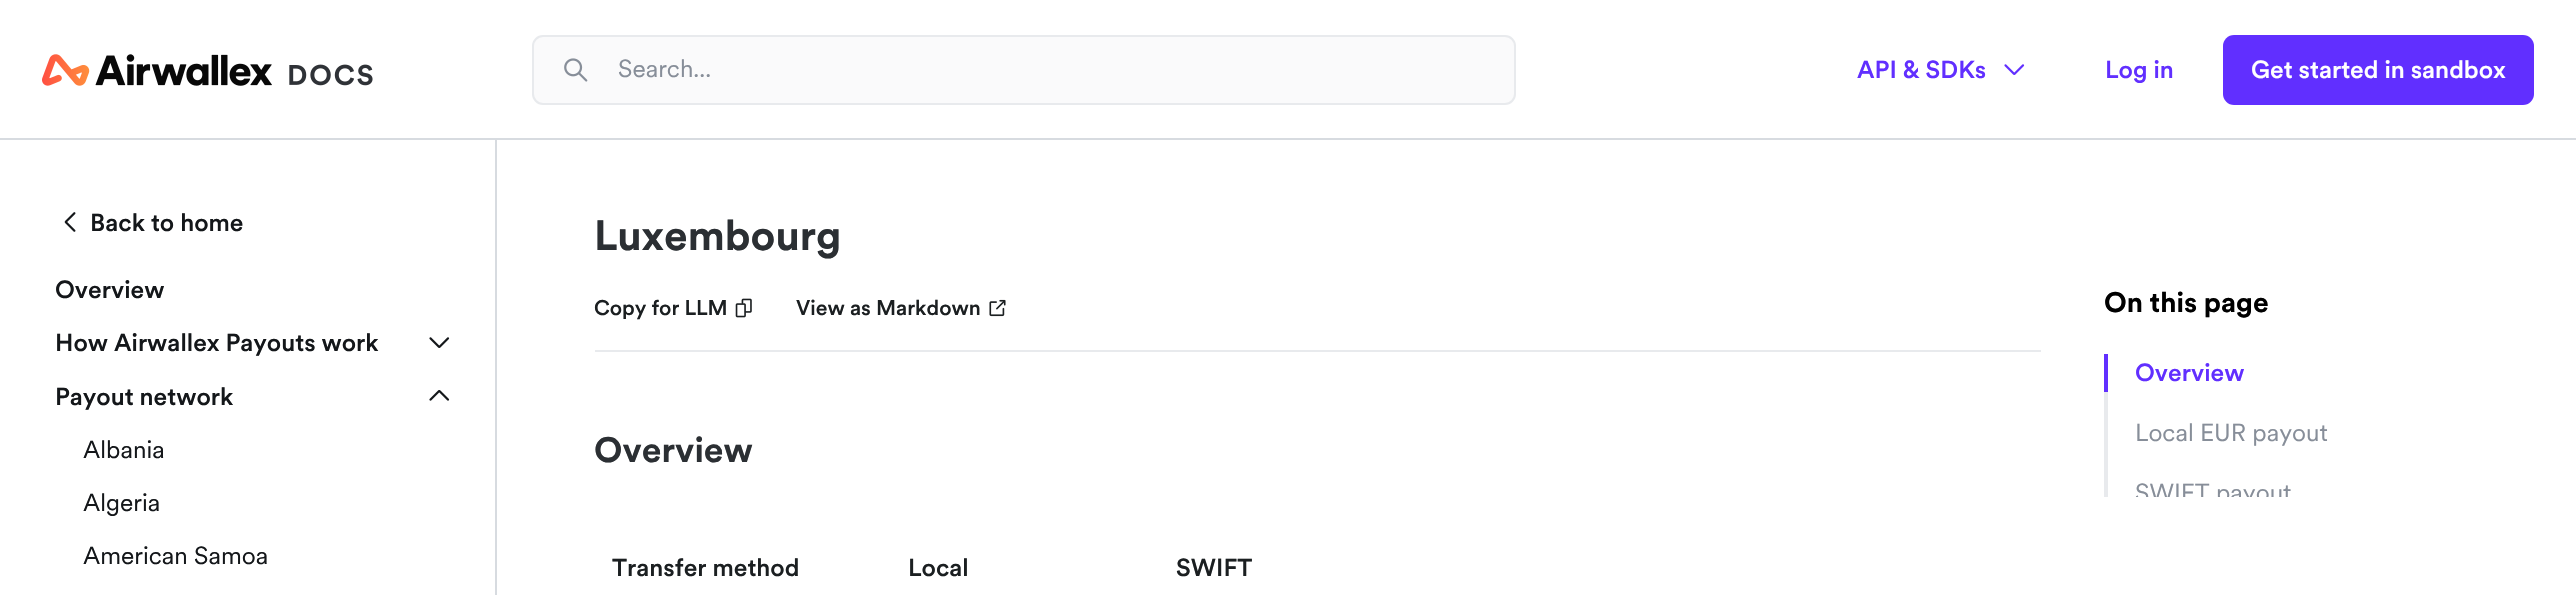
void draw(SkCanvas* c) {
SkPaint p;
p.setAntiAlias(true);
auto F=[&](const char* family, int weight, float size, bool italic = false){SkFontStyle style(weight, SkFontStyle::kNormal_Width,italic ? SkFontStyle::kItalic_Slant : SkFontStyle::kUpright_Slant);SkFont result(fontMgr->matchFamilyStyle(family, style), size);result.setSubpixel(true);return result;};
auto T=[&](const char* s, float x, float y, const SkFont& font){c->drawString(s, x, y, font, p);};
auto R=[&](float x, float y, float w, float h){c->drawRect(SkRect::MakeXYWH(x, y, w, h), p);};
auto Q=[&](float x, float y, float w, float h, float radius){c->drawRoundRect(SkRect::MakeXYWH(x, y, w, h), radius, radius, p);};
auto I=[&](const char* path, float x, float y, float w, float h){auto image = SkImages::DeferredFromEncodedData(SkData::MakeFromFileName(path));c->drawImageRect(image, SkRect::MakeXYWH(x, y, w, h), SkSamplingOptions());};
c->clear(0xffffffff);
p.setColor(0xffd7dbe0);
R(0,138,2576,2);
I("1.png",42,54,331,32);
p.setColor(0xfffafafb);
c->drawRoundRect(SkRect::MakeXYWH(533,36,982,68),10,10,p);
p.setStroke(true);
p.setStrokeWidth(2);
p.setColor(0xffe8eaed);
c->drawRoundRect(SkRect::MakeXYWH(533,36,982,68),10,10,p);
I("2.png",564,58,24,24);
auto f1 = F("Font",400,24.5);
p.setStroke(false);
p.setColor(0xff878e99);
T("Search...",618,77,f1);
auto f2 = F("Font",500,24.5);
p.setColor(0xff612fff);
T("API & SDKs",1857,78,f2);
I("3.png",2004,64,21,11);
T("Log in",2105,78,f2);
Q(2223,35,311,70,11);
p.setColor(0xffffffff);
T("Get started in sandbox",2251,78,f2);
p.setColor(0xffd7dbe0);
R(495,140,2,455);
I("4.png",64,212,12,20);
p.setColor(0xff14171a);
T("Back to home",90,231,f2);
T("Overview",55,298,f2);
T("How Airwallex Payouts work",55,351,f2);
I("5.png",429,337,21,11);
T("Payout network",55,405,f2);
I("6.png",429,390,21,11);
T("Albania",83,458,f1);
T("Algeria",83,511,f1);
T("American Samoa",83,564,f1);
p.setColor(0xffe8eaed);
R(595,350,1446,2);
auto f3 = F("Font",700,42);
p.setColor(0xff2b2f33);
T("Luxembourg",594,250,f3);
auto f4 = F("Font",500,21);
p.setColor(0xff1b1f21);
T("Copy for LLM",594,315,f4);
I("7.png",735,298,17,20);
T("View as Markdown",796,315,f4);
I("8.png",989,299,17,18);
auto f5 = F("Font",700,35);
p.setColor(0xff2b2f33);
T("Overview",594,462,f5);
p.setColor(0xff1b1f21);
T("Transfer method",612,576,f2);
T("Local",908,576,f2);
T("SWIFT",1176,576,f2);
auto f6 = F("Font",700,28);
p.setColor(0xff000000);
T("On this page",2104,312,f6);
p.setColor(0xffe8eaed);
R(2104,392,4,105);
p.setColor(0xff612fff);
R(2104,354,4,38);
T("Overview",2135,381,f2);
p.setColor(0xff878e99);
T("Local EUR payout",2135,441,f1);
c->save();
c->clipRect(SkRect::MakeXYWH(2104,280,374,217));
T("SWIFT payout",2135,501,f1);
c->restore();
}
